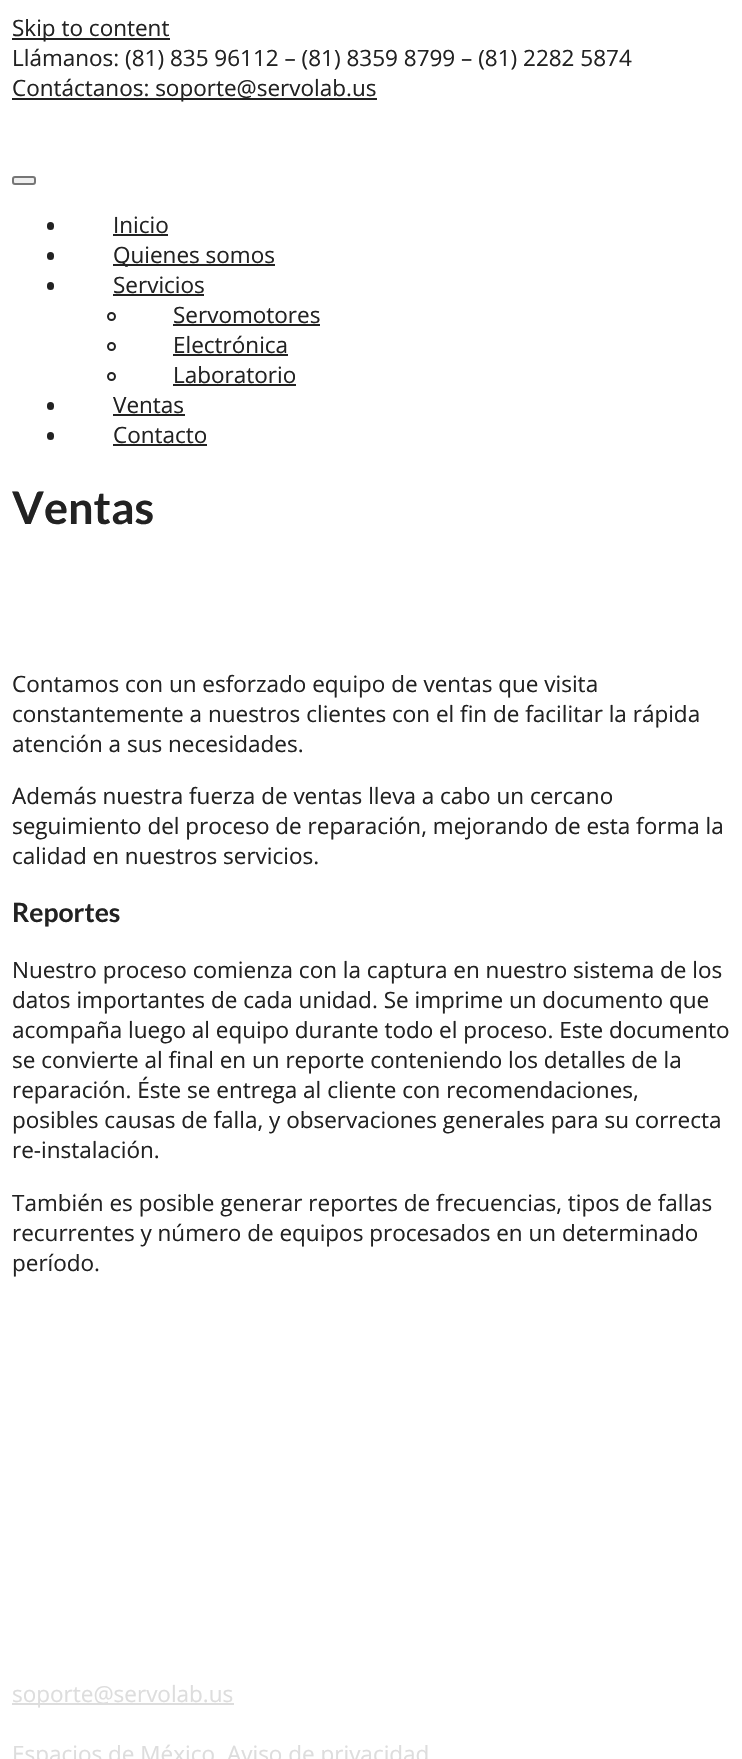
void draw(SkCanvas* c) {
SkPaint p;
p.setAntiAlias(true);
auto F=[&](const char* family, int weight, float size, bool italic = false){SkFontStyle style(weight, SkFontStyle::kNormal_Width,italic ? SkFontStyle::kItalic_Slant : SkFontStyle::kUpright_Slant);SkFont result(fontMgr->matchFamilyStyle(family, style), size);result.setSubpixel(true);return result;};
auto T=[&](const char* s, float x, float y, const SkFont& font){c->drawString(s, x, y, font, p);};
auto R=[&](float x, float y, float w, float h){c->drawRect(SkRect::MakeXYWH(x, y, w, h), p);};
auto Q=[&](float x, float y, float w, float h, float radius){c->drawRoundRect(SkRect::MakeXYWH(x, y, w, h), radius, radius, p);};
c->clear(0xffffffff);
p.setColor(0xff222222);
R(12,38,158,2);
auto f1 = F("Open Sans",400,22.5);
T("Skip to content",12,36,f1);
T("Llámanos: (81) 835 96112 – (81) 8359 8799 – (81) 2282 5874",12,66,f1);
R(12,98,365,2);
T("Contáctanos: soporte@servolab.us",12,96,f1);
p.setColor(0xffefefef);
c->drawRoundRect(SkRect::MakeXYWH(13,177,22,7),2,2,p);
p.setStroke(true);
p.setStrokeWidth(2);
p.setColor(0xff767676);
c->drawRoundRect(SkRect::MakeXYWH(13,177,22,7),2,2,p);
p.setStroke(false);
p.setColor(0xff222222);
Q(47,222,7,8,3.5);
T("Inicio",113,233,f1);
R(113,234,55,2);
Q(47,252,7,8,3.5);
R(113,264,162,2);
T("Quienes somos",113,263,f1);
Q(47,282,7,8,3.5);
T("Servicios",113,293,f1);
R(113,294,91,2);
p.setStroke(true);
c->drawCircle(111.5,316.5,3.5,p);
p.setStroke(false);
T("Servomotores",173,323,f1);
R(173,324,147,2);
p.setStroke(true);
c->drawCircle(111.5,346.5,3.5,p);
p.setStroke(false);
T("Electrónica",173,353,f1);
R(173,354,115,2);
p.setStroke(true);
c->drawCircle(111.5,376.5,3.5,p);
p.setStroke(false);
T("Laboratorio",173,383,f1);
R(173,384,123,2);
Q(47,402,7,8,3.5);
T("Ventas",113,413,f1);
R(113,414,72,2);
Q(47,432,7,8,3.5);
T("Contacto",113,443,f1);
R(113,444,94,2);
auto f2 = F("Lato",700,45);
T("Ventas",12,524,f2);
T("Contamos con un esforzado equipo de ventas que visita",12,692,f1);
T("constantemente a nuestros clientes con el fin de facilitar la rápida",12,722,f1);
T("atención a sus necesidades.",12,752,f1);
T("Además nuestra fuerza de ventas lleva a cabo un cercano",12,804,f1);
T("seguimiento del proceso de reparación, mejorando de esta forma la",12,834,f1);
T("calidad en nuestros servicios.",12,864,f1);
auto f3 = F("Lato",700,26.5);
T("Reportes",12,922,f3);
T("Nuestro proceso comienza con la captura en nuestro sistema de los",12,978,f1);
T("datos importantes de cada unidad. Se imprime un documento que",12,1008,f1);
T("acompaña luego al equipo durante todo el proceso. Este documento",12,1038,f1);
T("se convierte al final en un reporte conteniendo los detalles de la",12,1068,f1);
T("reparación. Éste se entrega al cliente con recomendaciones,",12,1098,f1);
T("posibles causas de falla, y observaciones generales para su correcta",12,1128,f1);
T("re-instalación.",12,1158,f1);
T("También es posible generar reportes de frecuencias, tipos de fallas",12,1211,f1);
T("recurrentes y número de equipos procesados en un determinado",12,1241,f1);
T("período.",12,1271,f1);
p.setColor(0xffdddddd);
R(12,1703,222,2);
T("soporte@servolab.us",12,1702,f1);
T("Espacios de México",12,1762,f1);
T("Aviso de privacidad",227,1762,f1);
}
